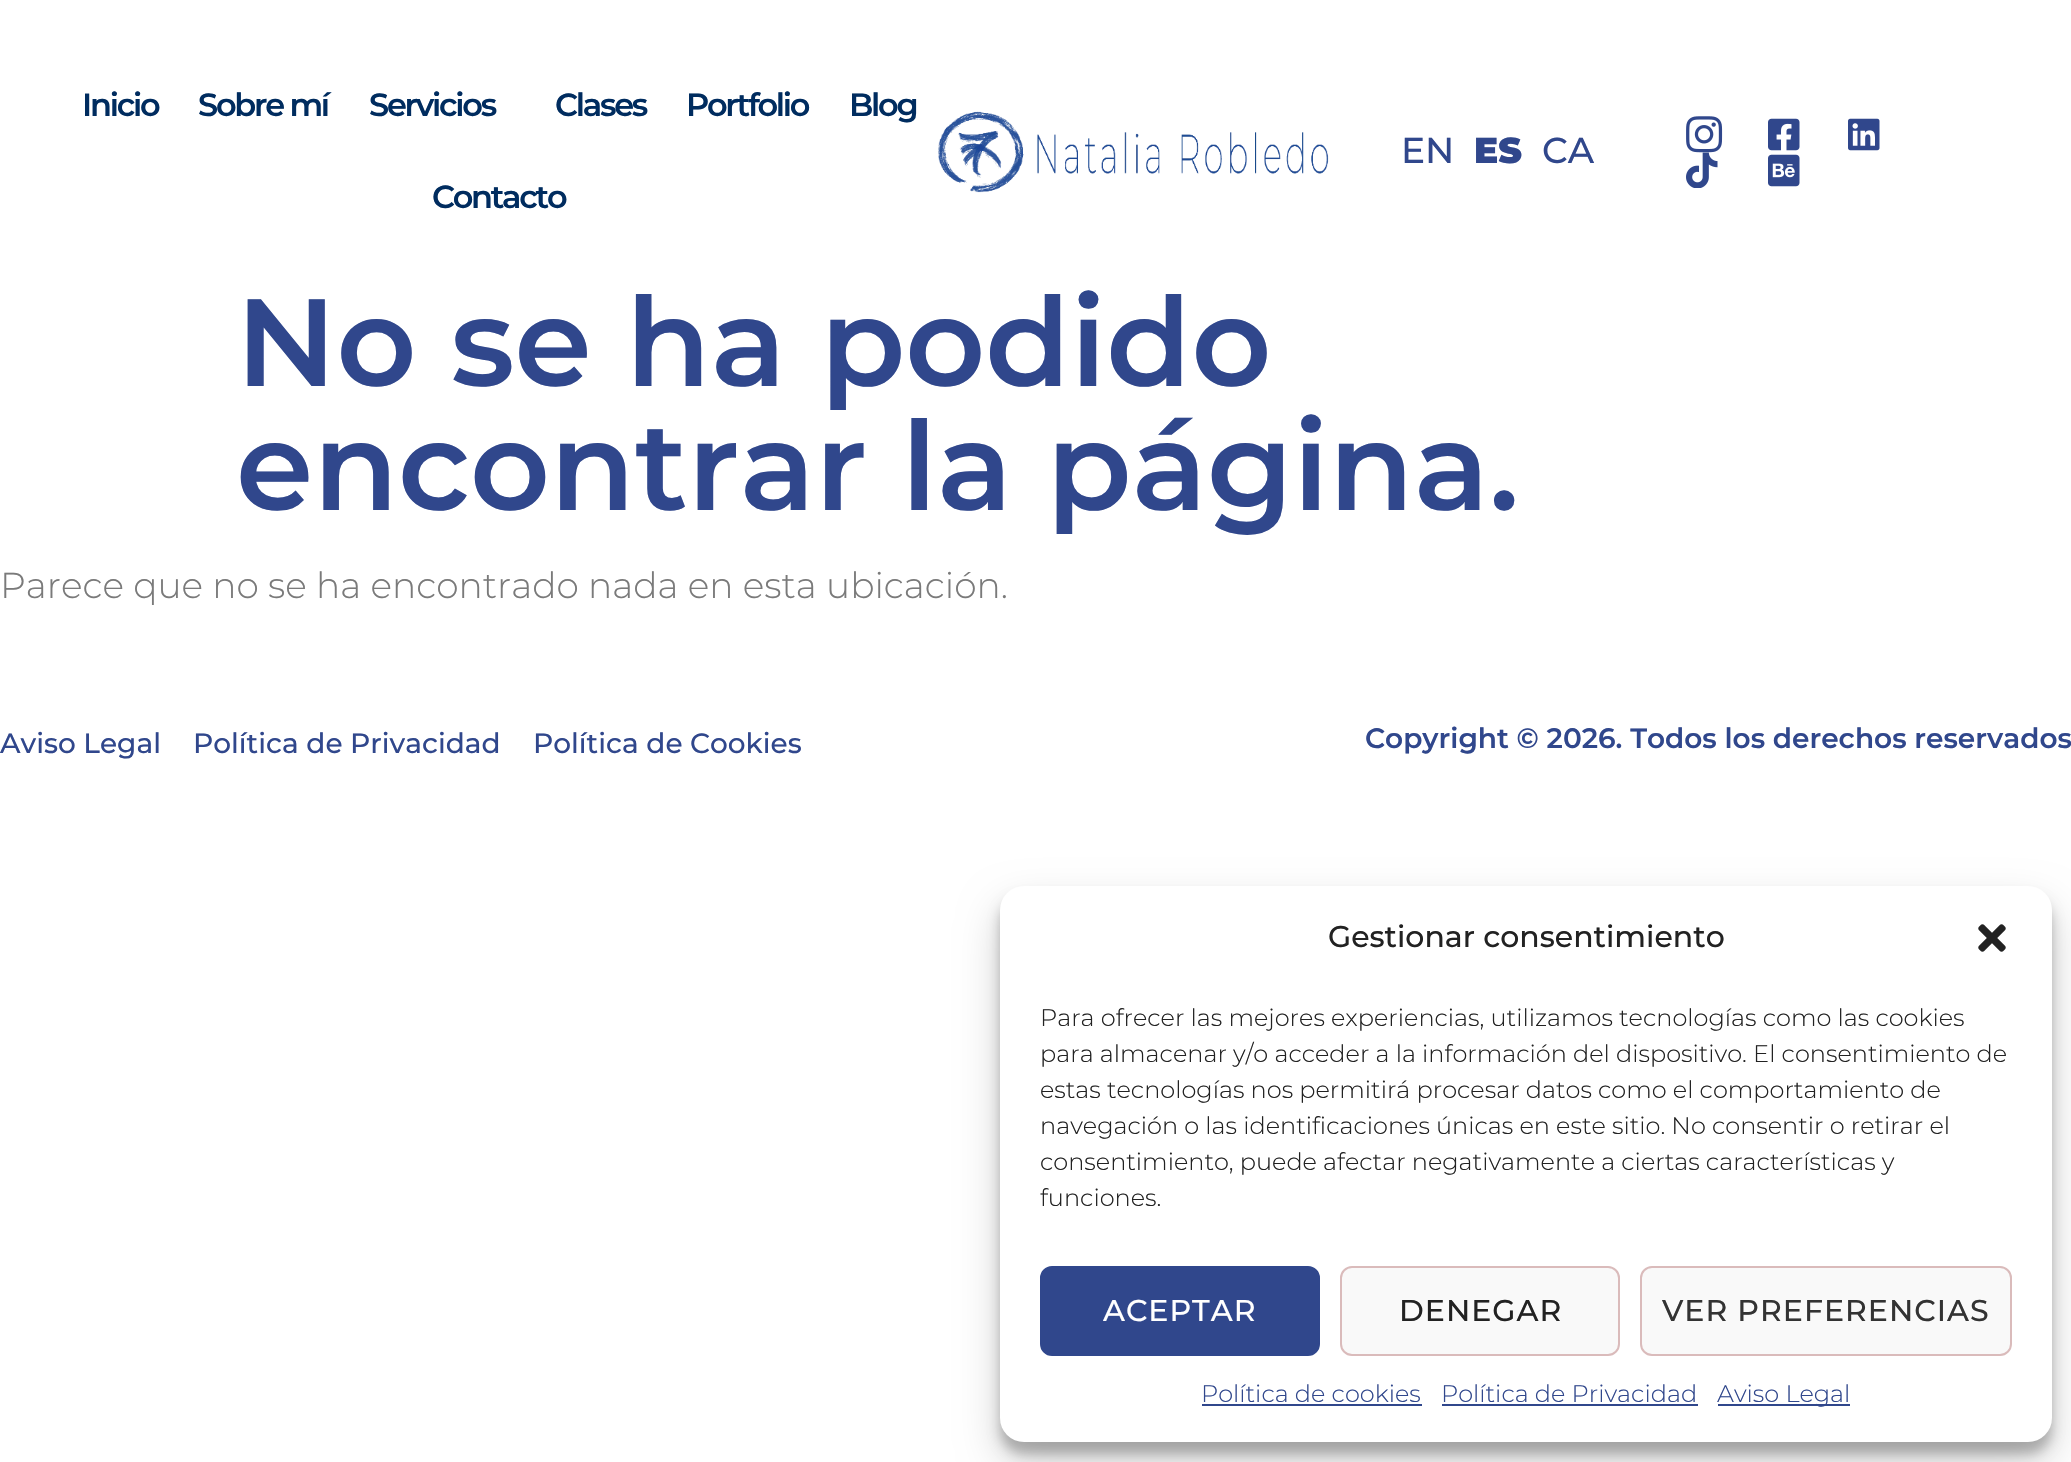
void draw(SkCanvas* c) {
SkPaint p;
p.setAntiAlias(true);
auto F=[&](const char* family, int weight, float size, bool italic = false){SkFontStyle style(weight, SkFontStyle::kNormal_Width,italic ? SkFontStyle::kItalic_Slant : SkFontStyle::kUpright_Slant);SkFont result(fontMgr->matchFamilyStyle(family, style), size);result.setSubpixel(true);return result;};
auto T=[&](const char* s, float x, float y, const SkFont& font){c->drawString(s, x, y, font, p);};
auto L=[&](const char* s, float x, float y, const SkFont& font, const SkPaint& ink, float letter, float word){std::vector<SkGlyphID> glyphs(font.countText(s, strlen(s), SkTextEncoding::kUTF8));std::vector<float> xs(glyphs.size());font.textToGlyphs(s, strlen(s), SkTextEncoding::kUTF8, glyphs);font.getXPos(glyphs, xs, x);float extra = 0;for (size_t i = 0; i < glyphs.size(); i++) {xs[i] += extra;extra += letter + word * (glyphs[i] == font.unicharToGlyph(' '));}c->drawTextBlob(SkTextBlob::MakeFromPosHGlyphs(glyphs, xs, y, font), 0, 0, ink);};
auto R=[&](float x, float y, float w, float h){c->drawRect(SkRect::MakeXYWH(x, y, w, h), p);};
auto Q=[&](float x, float y, float w, float h, float radius){c->drawRoundRect(SkRect::MakeXYWH(x, y, w, h), radius, radius, p);};
auto I=[&](const char* path, float x, float y, float w, float h){auto image = SkImages::DeferredFromEncodedData(SkData::MakeFromFileName(path));c->drawImageRect(image, SkRect::MakeXYWH(x, y, w, h), SkSamplingOptions());};
c->clear(0xffffffff);
auto f1 = F("Montserrat",600,32);
p.setColor(0xff002c5f);
L("Inicio",82,116,f1,p,-2.25,0);
L("Sobre mí",198,116,f1,p,-2.25,0);
L("Servicios",369,116,f1,p,-2.25,0);
L("Clases",555,116,f1,p,-2.25,0);
L("Portfolio",686,116,f1,p,-2.25,0);
L("Blog",849,116,f1,p,-2.25,0);
L("Contacto",432,208,f1,p,-2.25,0);
I("1.png",938,111,391,82);
auto f2 = F("Montserrat",500,36);
p.setColor(0xff30478c);
T("EN",1401,163,f2);
auto f3 = F("Montserrat",900,36);
T("ES",1474,163,f3);
T("CA",1542,163,f2);
I("2.png",1686,116,37,37);
I("3.png",1768,118,32,33);
I("4.png",1848,118,32,33);
I("5.png",1686,152,32,36);
I("6.png",1768,154,32,33);
auto f4 = F("Montserrat",600,124);
T("No se ha podido",236,386,f4);
T("encontrar la página.",236,510,f4);
auto f5 = F("Montserrat",300,36);
p.setColor(0xff7a7a7a);
T("Parece que no se ha encontrado nada en esta ubicación.",0,598,f5);
auto f6 = F("Montserrat",500,28);
p.setColor(0xff30478c);
T("Aviso Legal",0,753,f6);
T("Política de Privacidad",193,753,f6);
T("Política de Cookies",533,753,f6);
auto f7 = F("Montserrat",600,28);
T("Copyright © 2026. Todos los derechos reservados",1365,748,f7);
p.setColor(0x3b000000);
p.setMaskFilter(SkMaskFilter::MakeBlur(kNormal_SkBlurStyle, 6));
c->drawRoundRect(SkRect::MakeXYWH(1000,898,1052,556),24,24,p);
p.setMaskFilter(nullptr);
p.setColor(0x30000000);
p.setMaskFilter(SkMaskFilter::MakeBlur(kNormal_SkBlurStyle, 20));
c->drawRoundRect(SkRect::MakeXYWH(1000,906,1052,556),24,24,p);
p.setMaskFilter(nullptr);
p.setColor(0xffffffff);
Q(1000,886,1052,556,24);
auto f8 = F("Montserrat",500,30);
p.setColor(0xff222222);
T("Gestionar consentimiento",1328,947,f8);
I("7.png",1978,924,28,28);
auto f9 = F("Montserrat",300,24);
T("Para ofrecer las mejores experiencias, utilizamos tecnologías como las cookies",1040,1026,f9);
T("para almacenar y/o acceder a la información del dispositivo. El consentimiento de",1040,1062,f9);
T("estas tecnologías nos permitirá procesar datos como el comportamiento de",1040,1098,f9);
T("navegación o las identificaciones únicas en este sitio. No consentir o retirar el",1040,1134,f9);
T("consentimiento, puede afectar negativamente a ciertas características y",1040,1170,f9);
T("funciones.",1040,1206,f9);
p.setColor(0xff30478c);
c->drawRoundRect(SkRect::MakeXYWH(1041,1267,278,88),11,11,p);
p.setStroke(true);
p.setStrokeWidth(2);
c->drawRoundRect(SkRect::MakeXYWH(1041,1267,278,88),11,11,p);
p.setStroke(false);
p.setColor(0xffffffff);
L("ACEPTAR",1103,1321,f8,p,1,0);
p.setColor(0xfff9f9f9);
c->drawRoundRect(SkRect::MakeXYWH(1341,1267,278,88),11,11,p);
p.setStroke(true);
p.setColor(0xffdabbbb);
c->drawRoundRect(SkRect::MakeXYWH(1341,1267,278,88),11,11,p);
p.setStroke(false);
p.setColor(0xff222222);
L("DENEGAR",1399,1321,f8,p,1,0);
p.setColor(0xfff9f9f9);
c->drawRoundRect(SkRect::MakeXYWH(1641,1267,370,88),11,11,p);
p.setStroke(true);
p.setColor(0xffdabbbb);
c->drawRoundRect(SkRect::MakeXYWH(1641,1267,370,88),11,11,p);
p.setStroke(false);
p.setColor(0xff333333);
L("VER PREFERENCIAS",1662,1321,f8,p,1,0);
p.setColor(0xff30478c);
T("Política de cookies",1201,1402,f9);
R(1202,1404,220,2);
T("Política de Privacidad",1441,1402,f9);
R(1442,1404,256,2);
R(1718,1404,132,2);
T("Aviso Legal",1717,1402,f9);
}
